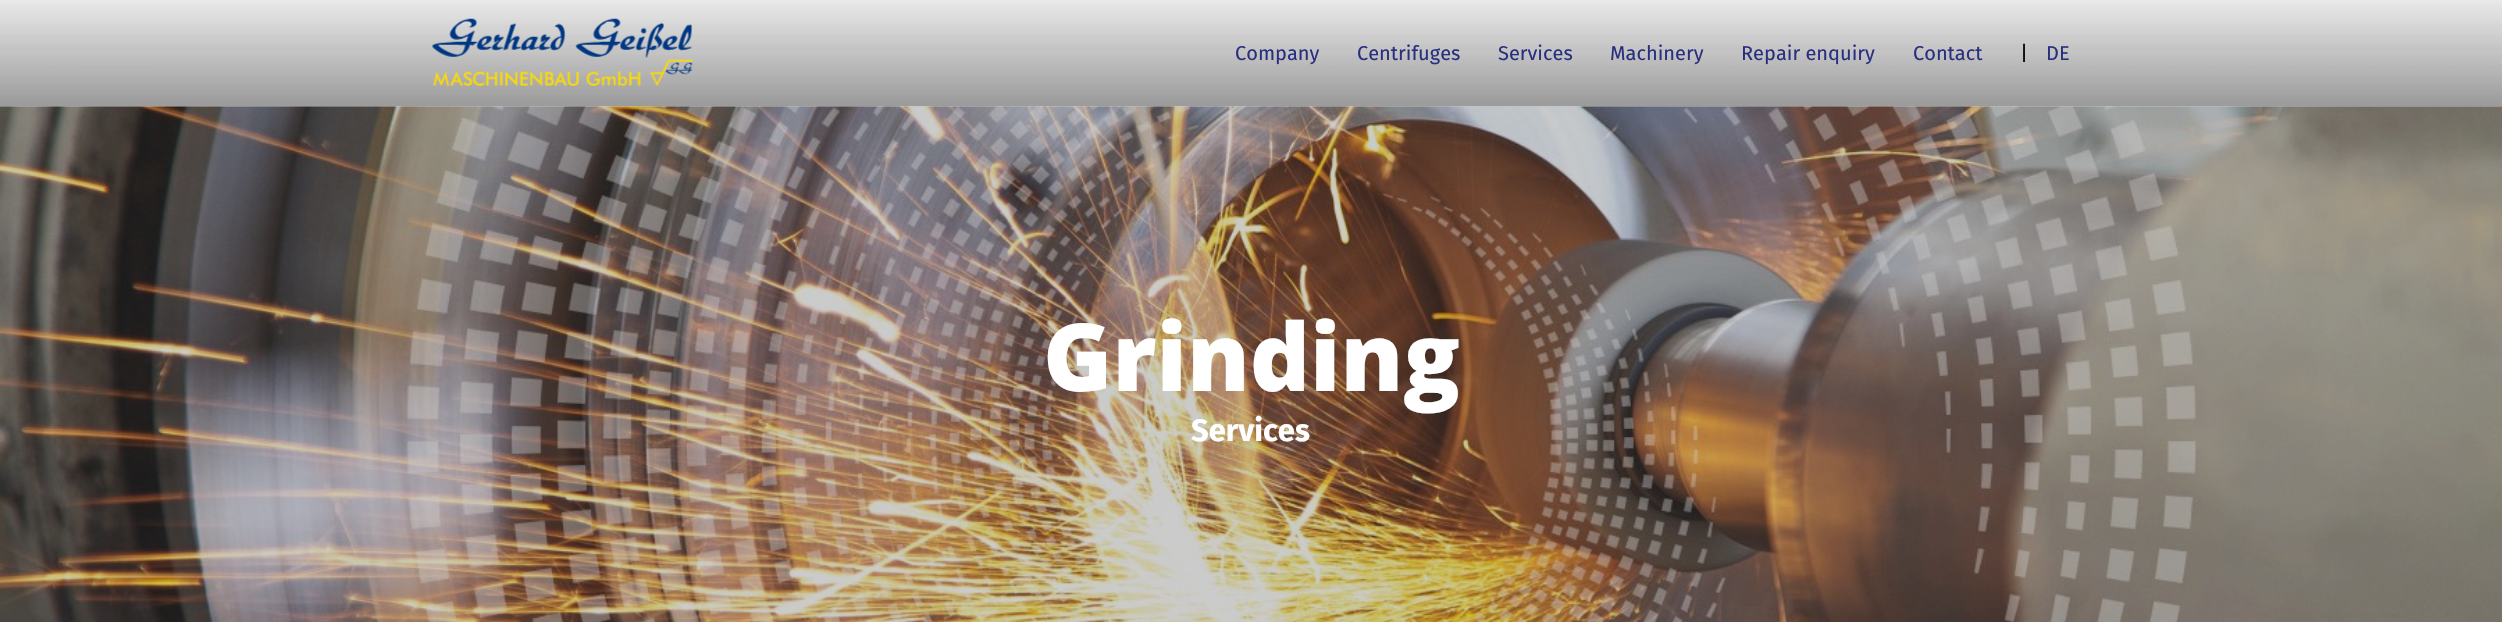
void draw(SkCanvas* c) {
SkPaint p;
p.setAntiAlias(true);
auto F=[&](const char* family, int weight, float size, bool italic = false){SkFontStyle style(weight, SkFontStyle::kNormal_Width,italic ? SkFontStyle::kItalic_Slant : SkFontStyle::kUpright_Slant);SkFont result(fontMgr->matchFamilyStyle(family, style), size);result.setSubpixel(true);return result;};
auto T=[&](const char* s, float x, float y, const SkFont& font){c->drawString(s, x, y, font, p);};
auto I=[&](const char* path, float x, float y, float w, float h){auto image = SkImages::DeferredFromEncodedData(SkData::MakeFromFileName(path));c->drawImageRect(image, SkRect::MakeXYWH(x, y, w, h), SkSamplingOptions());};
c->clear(0xffffffff);
I("3.png",0,106,2502,516);
I("1.png",0,0,2502,107);
I("2.png",432,18,261,68);
auto f1 = F("Fira Sans",400,20);
p.setColor(0xff292f7f);
T("Company",1235,60,f1);
T("Centrifuges",1357,60,f1);
T("Services",1498,60,f1);
T("Machinery",1610,60,f1);
T("Repair enquiry",1741,60,f1);
T("Contact",1913,60,f1);
p.setColor(0xff000000);
T("|",2020,60,f1);
p.setColor(0xff292f7f);
T("DE",2046,60,f1);
auto f2 = F("Open Sans",800,93.75);
p.setColor(0xffffffff);
T("Grinding",1043,391,f2);
auto f3 = F("Fira Sans",700,31);
T("Services",1191,441,f3);
}
